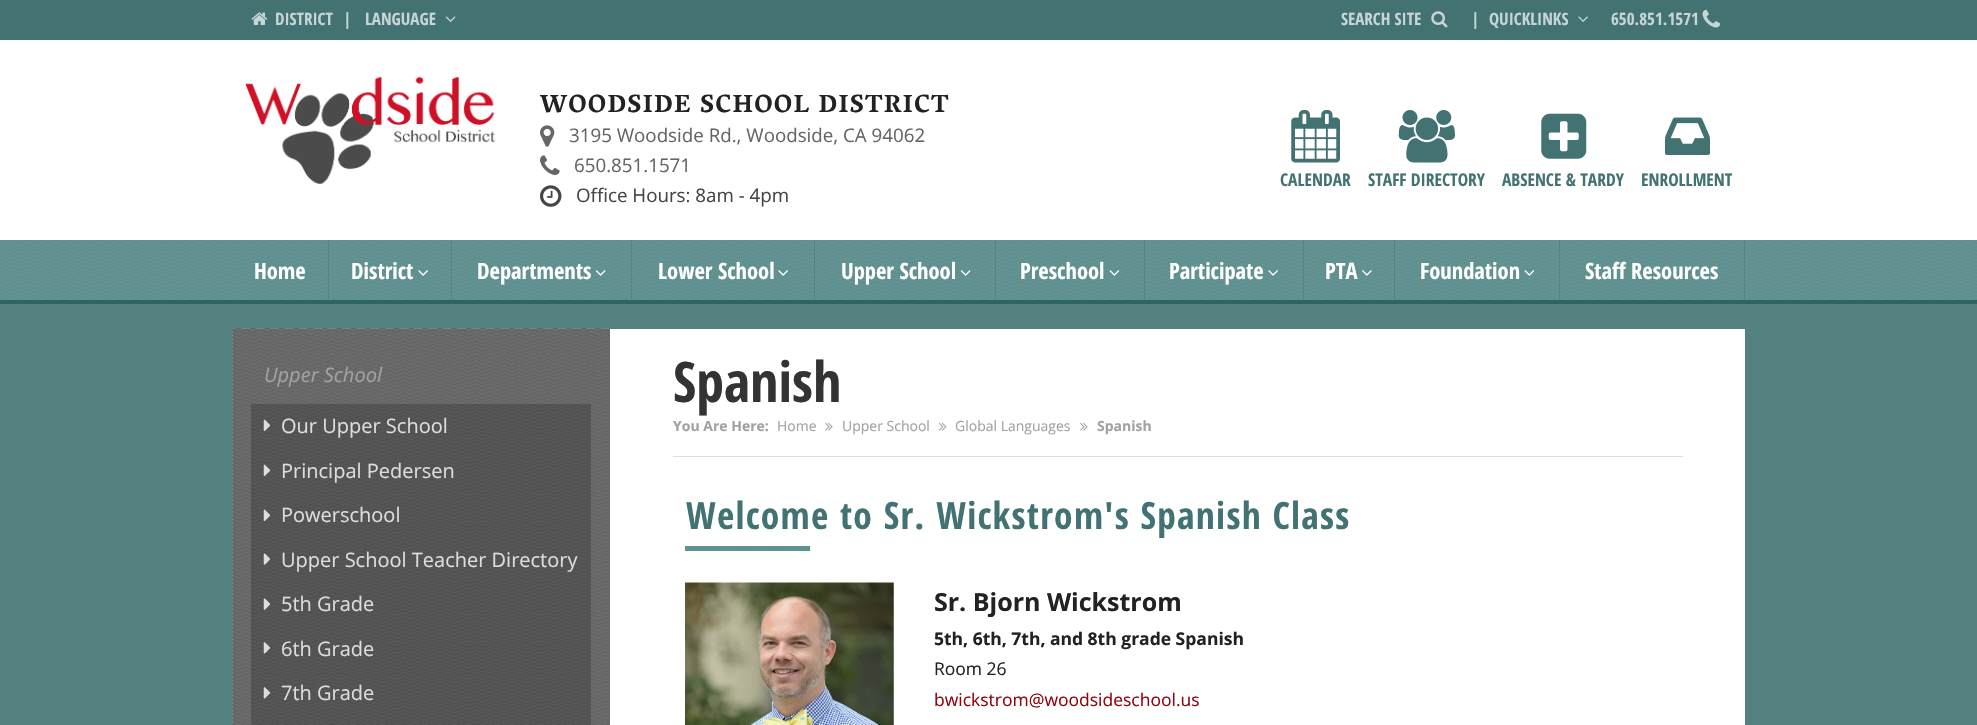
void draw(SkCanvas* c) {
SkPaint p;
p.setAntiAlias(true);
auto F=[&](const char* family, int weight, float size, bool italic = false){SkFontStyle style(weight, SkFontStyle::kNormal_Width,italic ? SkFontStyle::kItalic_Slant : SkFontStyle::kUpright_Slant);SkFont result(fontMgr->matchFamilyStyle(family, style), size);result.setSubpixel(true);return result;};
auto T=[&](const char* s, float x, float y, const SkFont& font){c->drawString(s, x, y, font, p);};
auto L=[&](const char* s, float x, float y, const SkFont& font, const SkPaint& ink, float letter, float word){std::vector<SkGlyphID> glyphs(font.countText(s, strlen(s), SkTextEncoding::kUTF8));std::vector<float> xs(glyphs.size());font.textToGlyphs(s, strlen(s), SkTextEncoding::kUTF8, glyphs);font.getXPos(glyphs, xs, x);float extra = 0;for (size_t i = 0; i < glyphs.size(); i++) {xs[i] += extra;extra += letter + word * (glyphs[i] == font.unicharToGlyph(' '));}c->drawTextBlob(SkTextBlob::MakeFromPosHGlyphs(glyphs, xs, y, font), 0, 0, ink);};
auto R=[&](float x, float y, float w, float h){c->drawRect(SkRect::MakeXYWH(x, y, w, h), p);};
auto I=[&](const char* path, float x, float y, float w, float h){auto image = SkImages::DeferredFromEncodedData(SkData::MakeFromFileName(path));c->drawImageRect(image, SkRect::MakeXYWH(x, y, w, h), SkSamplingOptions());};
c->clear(0xffffffff);
p.setColor(0xff427272);
R(0,0,1977,40);
I("1.png",251,12,17,13);
auto f1 = F("Open Sans Condensed",700,17);
p.setColor(0xffc6d5d5);
T("DISTRICT",275,25,f1);
T("|",343,25,f1);
T("LANGUAGE",365,25,f1);
I("2.png",445,16,11,6);
T("SEARCH SITE",1341,25,f1);
I("3.png",1431,11,17,17);
T("|",1471,25,f1);
T("QUICKLINKS",1489,25,f1);
I("4.png",1578,16,10,6);
T("650.851.1571",1611,25,f1);
I("5.png",1702,9,19,19);
I("6.png",245,76,251,108);
auto f2 = F("Vesper Libre",700,25.25);
p.setColor(0xff222222);
L("WOODSIDE SCHOOL DISTRICT",540,112,f2,p,1.25,0);
I("7.png",540,125,15,22);
auto f3 = F("Open Sans",400,18.75);
p.setColor(0xff666666);
T("3195 Woodside Rd., Woodside, CA 94062",569,142,f3);
I("8.png",540,155,20,20);
T("650.851.1571",574,172,f3);
I("9.png",540,185,22,22);
p.setColor(0xff454545);
T("Office Hours: 8am - 4pm",576,202,f3);
I("10.png",1291,110,49,53);
auto f4 = F("Open Sans Condensed",700,17.5);
p.setColor(0xff427272);
T("CALENDAR",1280,186,f4);
I("11.png",1398,110,57,53);
T("STAFF DIRECTORY",1368,186,f4);
I("12.png",1541,113,46,46);
T("ABSENCE & TARDY",1502,186,f4);
I("13.png",1665,117,45,38);
T("ENROLLMENT",1641,186,f4);
I("14.png",0,240,1977,60);
p.setColor(0xff2d6464);
R(0,300,1977,4);
p.setColor(0x1a000000);
R(328,240,1,60);
auto f5 = F("Open Sans Condensed",700,22.5);
p.setColor(0xffffffff);
T("Home",254,279,f5);
p.setColor(0x1a000000);
R(451,240,1,60);
p.setColor(0xffffffff);
T("District",351,279,f5);
I("15.png",418,270,10,6);
p.setColor(0x1a000000);
R(631,240,1,60);
p.setColor(0xffffffff);
T("Departments",477,279,f5);
I("16.png",595,270,11,6);
p.setColor(0x1a000000);
R(814,240,1,60);
p.setColor(0xffffffff);
T("Lower School",658,279,f5);
I("17.png",778,270,10,6);
p.setColor(0x1a000000);
R(995,240,1,60);
p.setColor(0xffffffff);
T("Upper School",841,279,f5);
I("18.png",960,270,11,6);
p.setColor(0x1a000000);
R(1144,240,1,60);
p.setColor(0xffffffff);
T("Preschool",1020,279,f5);
I("19.png",1109,270,11,6);
p.setColor(0x1a000000);
R(1303,240,1,60);
p.setColor(0xffffffff);
T("Participate",1169,279,f5);
I("20.png",1268,270,10,6);
p.setColor(0x1a000000);
R(1394,240,1,60);
p.setColor(0xffffffff);
T("PTA",1325,279,f5);
I("21.png",1362,270,10,6);
p.setColor(0x1a000000);
R(1559,240,1,60);
p.setColor(0xffffffff);
T("Foundation",1420,279,f5);
I("22.png",1524,270,11,6);
p.setColor(0x1a000000);
R(1744,240,1,60);
p.setColor(0xffffffff);
T("Staff Resources",1585,279,f5);
p.setColor(0xff558080);
R(0,304,1977,421);
I("23.png",232,328,378,397);
auto f6 = F("Open Sans",400,20,true);
p.setColor(0xffa2a2a2);
T("Upper School",264,382,f6);
p.setColor(0x33000000);
R(251,404,340,321);
I("24.png",263,419,8,12);
auto f7 = F("Open Sans",400,20);
p.setColor(0xffdddddd);
T("Our Upper School",281,433,f7);
I("25.png",263,464,8,12);
T("Principal Pedersen",281,478,f7);
I("26.png",263,509,8,12);
T("Powerschool",281,522,f7);
I("27.png",263,553,8,12);
T("Upper School Teacher Directory",281,567,f7);
I("28.png",263,598,8,12);
T("5th Grade",281,611,f7);
I("29.png",263,642,8,12);
T("6th Grade",281,656,f7);
I("30.png",263,687,8,12);
T("7th Grade",281,700,f7);
p.setColor(0xffffffff);
R(610,329,1135,396);
auto f8 = F("Open Sans Condensed",700,56);
p.setColor(0xff333333);
T("Spanish",673,402,f8);
auto f9 = F("Open Sans",700,14);
p.setColor(0xffa2a2a2);
T("You Are Here:",673,431,f9);
auto f10 = F("Open Sans",400,14);
T("Home",777,431,f10);
I("31.png",825,422,8,9);
T("Upper School",842,431,f10);
I("32.png",938,422,9,9);
T("Global Languages",955,431,f10);
I("31.png",1080,422,8,9);
T("Spanish",1097,431,f9);
p.setColor(0xffdddddd);
R(673,456,1010,1);
auto f11 = F("Open Sans Condensed",700,37.5);
p.setColor(0xff427272);
L("Welcome to Sr. Wickstrom's Spanish Class",686,529,f11,p,1.25,0);
p.setColor(0xff609191);
R(685,546,125,5);
I("33.png",685,582,209,143);
auto f12 = F("Open Sans",700,25);
p.setColor(0xff222222);
T("Sr. Bjorn Wickstrom",934,611,f12);
auto f13 = F("Open Sans",700,17.5);
T("5th, 6th, 7th, and 8th grade Spanish",934,645,f13);
auto f14 = F("Open Sans",400,17.5);
T("Room 26",934,675,f14);
p.setColor(0xff91050f);
T("bwickstrom@woodsideschool.us",934,706,f14);
}
